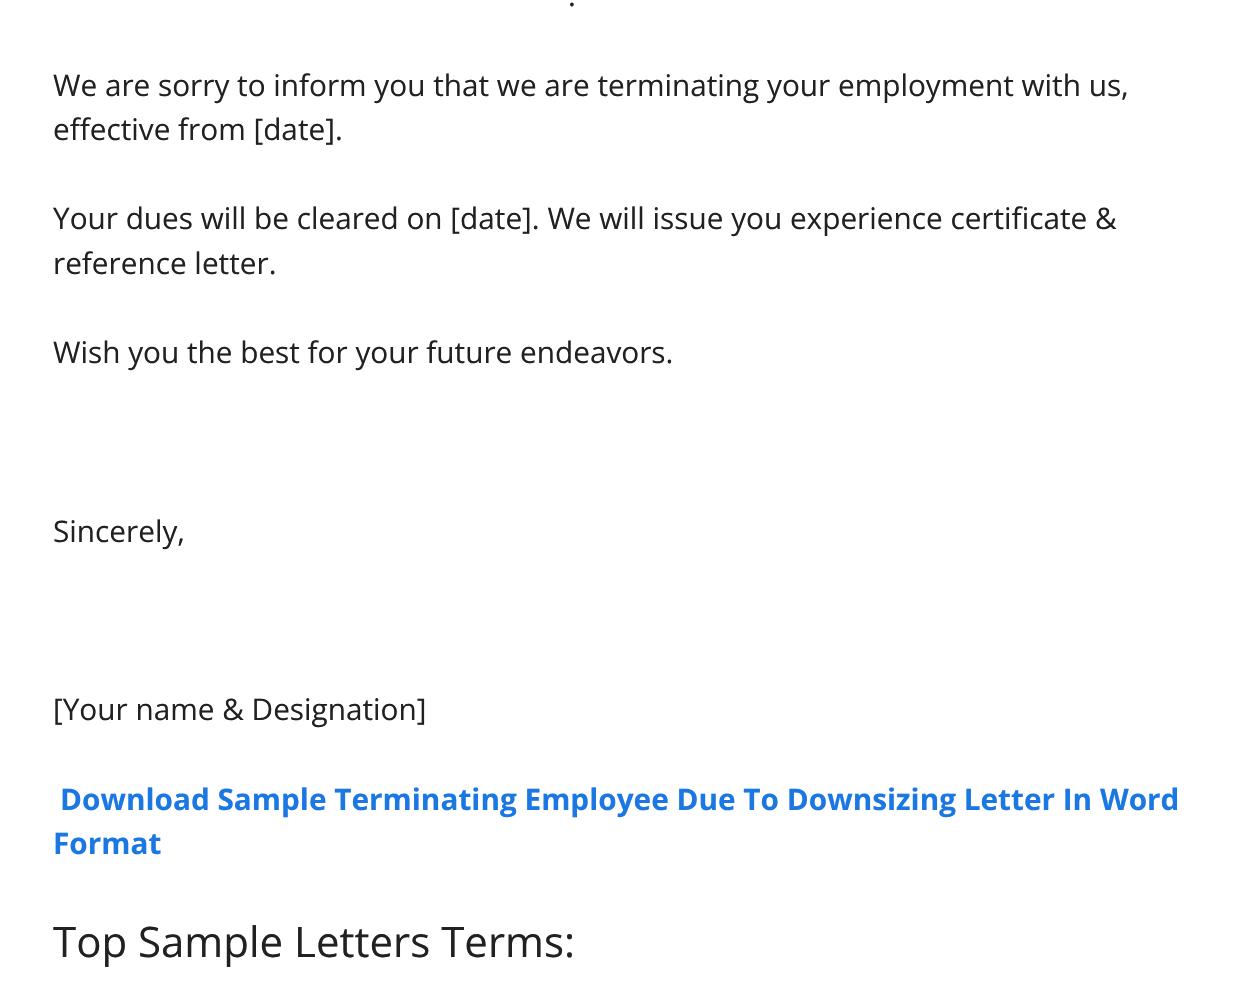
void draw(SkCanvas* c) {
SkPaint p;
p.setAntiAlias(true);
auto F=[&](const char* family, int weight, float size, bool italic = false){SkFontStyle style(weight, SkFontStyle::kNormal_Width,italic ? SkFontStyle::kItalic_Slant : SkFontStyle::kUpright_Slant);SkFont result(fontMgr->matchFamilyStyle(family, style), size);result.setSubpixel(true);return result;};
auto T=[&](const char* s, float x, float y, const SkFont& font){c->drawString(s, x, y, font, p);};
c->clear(0xffffffff);
auto f1 = F("Open Sans",400,29.75);
p.setColor(0xff212121);
T(".",568,6,f1);
T("We are sorry to inform you that we are terminating your employment with us,",53,96,f1);
T("effective from [date].",53,140,f1);
T("Your dues will be cleared on [date]. We will issue you experience certificate &",53,229,f1);
T("reference letter.",53,274,f1);
T("Wish you the best for your future endeavors.",53,363,f1);
T("Sincerely,",53,542,f1);
T("[Your name & Designation]",53,720,f1);
auto f2 = F("Open Sans",700,29.75);
p.setColor(0xff1b78e2);
T("Download Sample Terminating Employee Due To Downsizing Letter In Word",60,810,f2);
T("Format",53,854,f2);
auto f3 = F("Open Sans",400,42);
p.setColor(0xff212121);
T("Top Sample Letters Terms:",53,957,f3);
}
